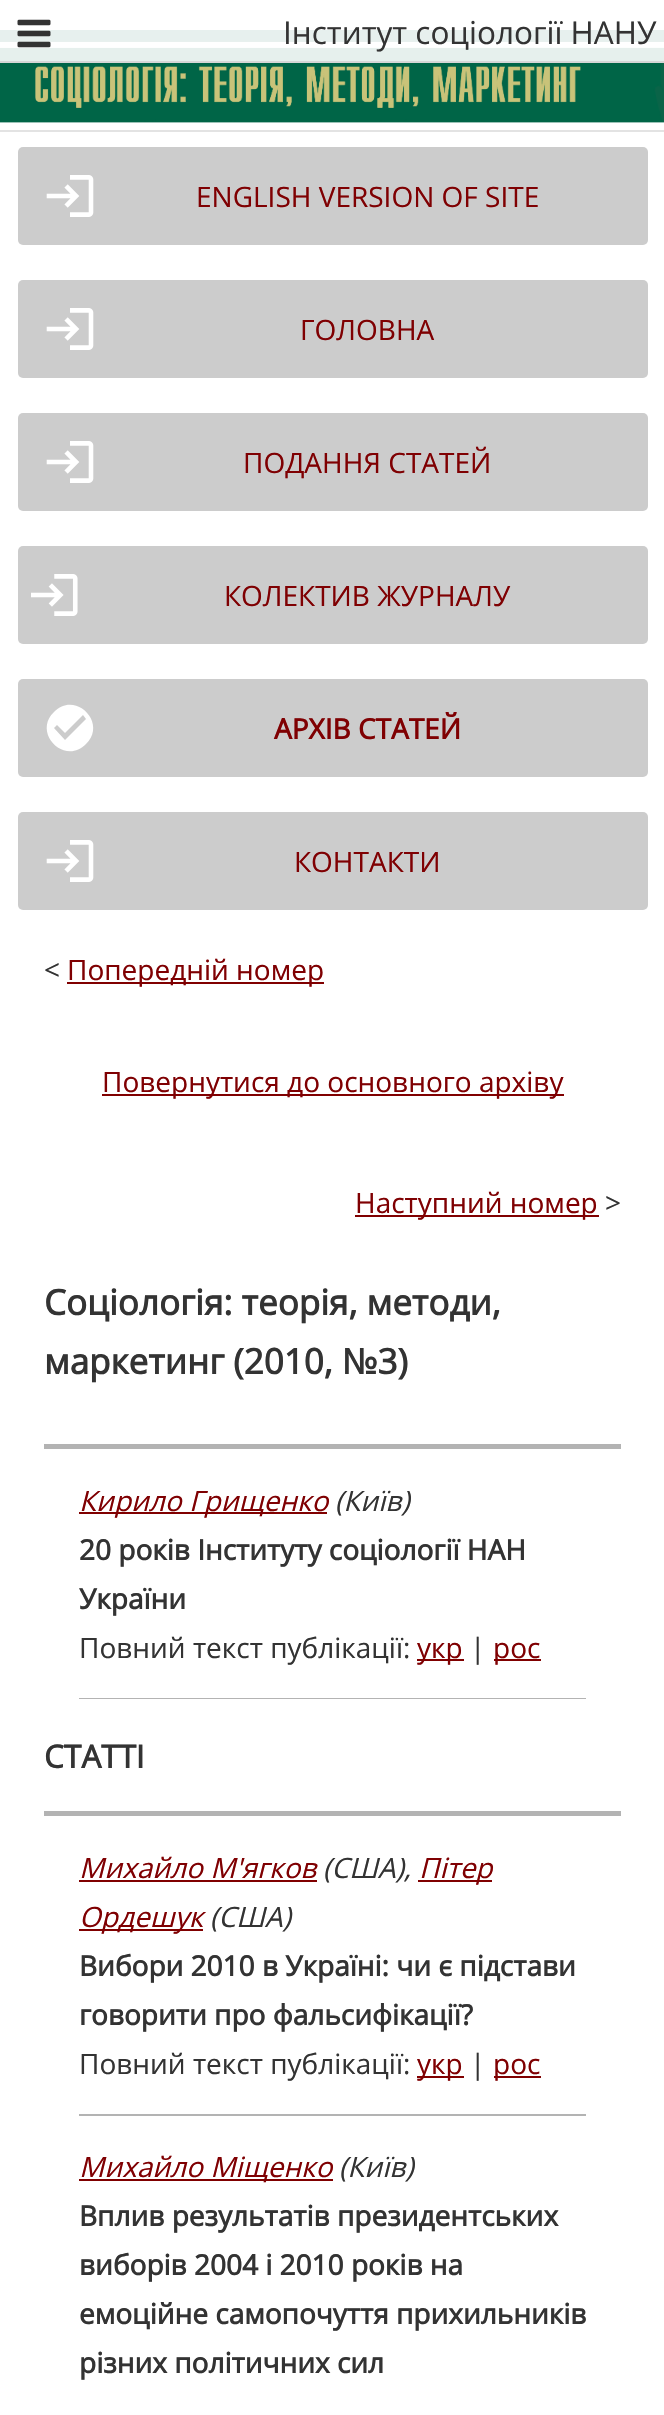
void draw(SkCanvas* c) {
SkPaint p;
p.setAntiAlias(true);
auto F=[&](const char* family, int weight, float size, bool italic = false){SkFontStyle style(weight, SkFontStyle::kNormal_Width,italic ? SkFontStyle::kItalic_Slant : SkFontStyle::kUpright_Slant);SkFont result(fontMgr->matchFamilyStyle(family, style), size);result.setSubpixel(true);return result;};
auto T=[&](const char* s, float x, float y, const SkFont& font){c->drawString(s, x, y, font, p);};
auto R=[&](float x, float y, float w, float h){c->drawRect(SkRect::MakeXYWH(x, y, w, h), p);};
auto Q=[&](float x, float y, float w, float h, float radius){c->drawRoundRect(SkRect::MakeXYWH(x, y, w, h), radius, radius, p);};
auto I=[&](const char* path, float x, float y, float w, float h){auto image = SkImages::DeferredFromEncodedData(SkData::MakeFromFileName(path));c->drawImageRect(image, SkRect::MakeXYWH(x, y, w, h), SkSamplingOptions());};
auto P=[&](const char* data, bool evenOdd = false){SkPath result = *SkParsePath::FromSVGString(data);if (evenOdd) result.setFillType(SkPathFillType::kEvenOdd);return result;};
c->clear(0xffffffff);
I("2.png",0,30,664,93);
p.setColor(0xe6ffffff);
R(0,30,664,31);
p.setColor(0xffd6d6d6);
R(0,61,664,2);
I("1.png",17,19,34,29);
auto f1 = F("Open Sans",400,31.5);
p.setColor(0xff333333);
T("Інститут соціології НАНУ",283,44,f1);
p.setColor(0xffe3e3e3);
R(0,130,664,2);
p.setColor(0xffcccccc);
Q(18,147,630,98,5);
I("3.png",46,175,48,42);
auto f2 = F("Open Sans",400,28);
p.setColor(0xff7f0002);
T("ENGLISH VERSION OF SITE",196,207,f2);
p.setColor(0xffcccccc);
Q(18,280,630,98,5);
I("3.png",46,308,48,42);
p.setColor(0xff7f0002);
T("ГОЛОВНА",300,340,f2);
p.setColor(0xffcccccc);
Q(18,413,630,98,5);
I("3.png",46,441,48,42);
p.setColor(0xff7f0002);
T("ПОДАННЯ СТАТЕЙ",243,473,f2);
p.setColor(0xffcccccc);
Q(18,546,630,98,5);
I("4.png",31,574,47,42);
p.setColor(0xff7f0002);
T("КОЛЕКТИВ ЖУРНАЛУ",224,606,f2);
p.setColor(0xffcccccc);
Q(18,679,630,98,5);
p.setColor(0xffffffff);
c->drawPath(P("M65 740l21-21l-3-4l-18 18l-8-8l-3 3zm-11-28c21-22 54 11 32 32c-21 22-54-11-32-32z"),p);
auto f3 = F("Open Sans",700,28);
p.setColor(0xff7f0002);
T("АРХІВ СТАТЕЙ",274,739,f3);
p.setColor(0xffcccccc);
Q(18,812,630,98,5);
I("3.png",46,840,48,42);
p.setColor(0xff7f0002);
T("КОНТАКТИ",294,872,f2);
p.setColor(0xff333333);
T("<",44,980,f2);
p.setColor(0xff800000);
R(67,982,257,2);
p.setColor(0xff7f0002);
T("Попередній номер",67,980,f2);
p.setColor(0xff800000);
R(102,1094,462,2);
p.setColor(0xff7f0002);
T("Повернутися до основного архіву",102,1092,f2);
p.setColor(0xff800000);
R(355,1215,244,2);
p.setColor(0xff7f0002);
T("Наступний номер",355,1213,f2);
p.setColor(0xff333333);
T(">",605,1213,f2);
auto f4 = F("Open Sans",700,35);
T("Соціологія: теорія, методи,",44,1315,f4);
T("маркетинг (2010, №3)",44,1374,f4);
p.setColor(0xffb3b3b3);
R(44,1444,577,5);
R(79,1698,507,1);
p.setColor(0xff800000);
R(79,1512,248,2);
auto f5 = F("Open Sans",400,28,true);
p.setColor(0xff7f0002);
T("Кирило Грищенко",79,1511,f5);
p.setColor(0xff333333);
T("(Київ)",335,1511,f5);
T("20 років Інституту соціології НАН",79,1560,f3);
T("України",79,1609,f3);
T("Повний текст публікації:",79,1658,f2);
p.setColor(0xff800000);
R(417,1659,47,2);
p.setColor(0xff7f0002);
T("укр",417,1658,f2);
p.setColor(0xff333333);
T("|",470,1658,f2);
p.setColor(0xff800000);
R(494,1659,47,2);
p.setColor(0xff7f0002);
T("рос",493,1658,f2);
auto f6 = F("Open Sans",700,31.5);
p.setColor(0xff333333);
T("СТАТТІ",44,1768,f6);
p.setColor(0xffb3b3b3);
R(44,1811,577,5);
R(79,2114,507,2);
p.setColor(0xff7f0002);
T("Михайло М'ягков",79,1878,f5);
p.setColor(0xff800000);
R(79,1880,238,2);
p.setColor(0xff333333);
T("(США),",323,1878,f5);
p.setColor(0xff800000);
R(418,1880,74,2);
p.setColor(0xff7f0002);
T("Пітер",419,1878,f5);
p.setColor(0xff800000);
R(79,1929,124,2);
p.setColor(0xff7f0002);
T("Ордешук",79,1927,f5);
p.setColor(0xff333333);
T("(США)",210,1927,f5);
T("Вибори 2010 в Україні: чи є підстави",79,1976,f3);
T("говорити про фальсифікації?",79,2025,f3);
T("Повний текст публікації:",79,2074,f2);
p.setColor(0xff800000);
R(417,2076,47,2);
p.setColor(0xff7f0002);
T("укр",417,2074,f2);
p.setColor(0xff333333);
T("|",470,2074,f2);
p.setColor(0xff800000);
R(494,2076,47,2);
p.setColor(0xff7f0002);
T("рос",493,2074,f2);
p.setColor(0xff800000);
R(79,2179,254,2);
p.setColor(0xff7f0002);
T("Михайло Міщенко",79,2177,f5);
p.setColor(0xff333333);
T("(Київ)",339,2177,f5);
T("Вплив результатів президентських",79,2226,f3);
T("виборів 2004 і 2010 років на",79,2275,f3);
T("емоційне самопочуття прихильників",79,2324,f3);
T("різних політичних сил",79,2373,f3);
}
